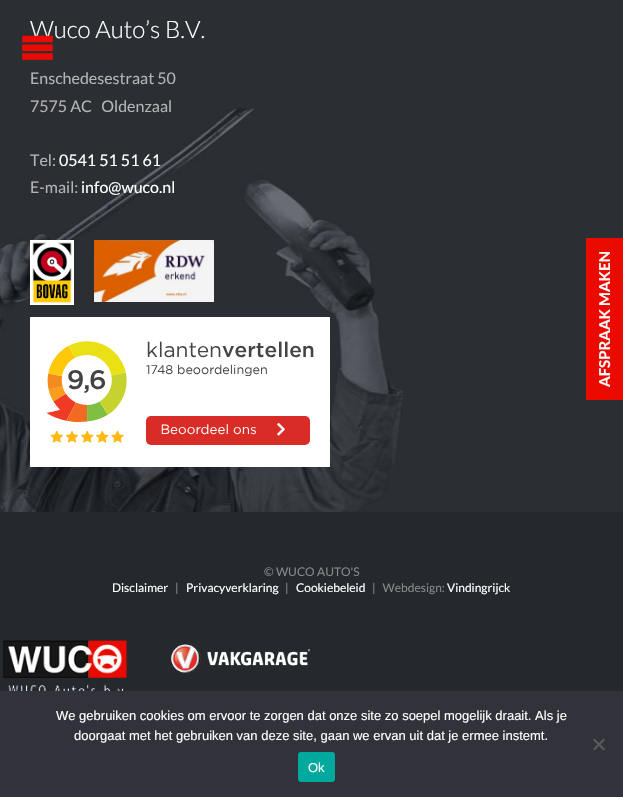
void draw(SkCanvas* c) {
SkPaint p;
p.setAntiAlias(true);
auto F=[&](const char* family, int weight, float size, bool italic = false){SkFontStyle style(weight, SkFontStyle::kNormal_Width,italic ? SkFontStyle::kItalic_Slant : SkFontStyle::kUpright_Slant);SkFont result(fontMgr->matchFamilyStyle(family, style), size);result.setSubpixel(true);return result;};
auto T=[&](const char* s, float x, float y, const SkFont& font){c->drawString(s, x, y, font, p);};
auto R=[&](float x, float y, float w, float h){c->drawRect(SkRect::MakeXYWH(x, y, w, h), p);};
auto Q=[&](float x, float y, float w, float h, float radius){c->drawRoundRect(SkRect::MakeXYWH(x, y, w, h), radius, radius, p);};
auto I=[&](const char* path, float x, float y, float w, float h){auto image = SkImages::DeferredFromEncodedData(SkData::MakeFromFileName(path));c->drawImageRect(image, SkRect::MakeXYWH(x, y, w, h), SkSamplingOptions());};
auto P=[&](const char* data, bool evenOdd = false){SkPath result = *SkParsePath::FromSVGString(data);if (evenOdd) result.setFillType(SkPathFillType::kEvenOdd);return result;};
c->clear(0xff2b2f34);
I("1.png",0,108,403,404);
auto f1 = F("Lato",300,24);
p.setColor(0xffffffff);
T("Wuco Auto’s B.V.",30,38,f1);
auto f2 = F("Lato",400,16);
p.setColor(0xffb4b4b4);
T("Enschedesestraat 50",30,84,f2);
T("7575 AC   Oldenzaal",30,112,f2);
T("Tel:",30,166,f2);
p.setColor(0xffffffff);
T("0541 51 51 61",59,166,f2);
p.setColor(0xffb4b4b4);
T("E-mail:",30,193,f2);
p.setColor(0xffffffff);
T("info@wuco.nl",81,193,f2);
I("2.png",30,240,44,65);
I("3.png",94,240,120,62);
I("4.png",30,317,300,150);
p.setColor(0xff25282c);
R(0,512,623,179);
auto f3 = F("Lato",400,12);
p.setColor(0xff898989);
T("© WUCO AUTO'S",264,576,f3);
p.setColor(0xffffffff);
T("Disclaimer",112,592,f3);
p.setColor(0xff898989);
T("|",175,592,f3);
p.setColor(0xffffffff);
T("Privacyverklaring",186,592,f3);
p.setColor(0xff898989);
T("|",285,592,f3);
p.setColor(0xffffffff);
T("Cookiebeleid",296,592,f3);
p.setColor(0xff898989);
T("|   Webdesign:",372,592,f3);
p.setColor(0xffffffff);
T("Vindingrijck",447,592,f3);
I("5.png",3,640,125,51);
I("6.png",170,643,140,31);
I("7.png",22,35,31,25);
p.setColor(0xffea0a00);
R(586,238,37,162);
auto f4 = F("Lato",700,15);
p.setColor(0xffffffff);
c->save();
c->rotate(-90,610,387);
T("AFSPRAAK MAKEN",610,387,f4);
c->restore();
p.setColor(0xff32323a);
R(0,691,623,106);
auto f5 = F("Liberation Sans",400,13);
p.setColor(0xffffffff);
T("We gebruiken cookies om ervoor te zorgen dat onze site zo soepel mogelijk draait. Als je",56,720,f5);
T("doorgaat met het gebruiken van deze site, gaan we ervan uit dat je ermee instemt.",74,740,f5);
p.setColor(0xff59595d);
c->drawPath(P("M603.5 738.5l1.5 1.5l-10.5 10.5l-1.5-1.5z"),p);
c->drawPath(P("M593 740l1.5-1.5l10.5 10.5l-1.5 1.5z"),p);
p.setColor(0xff00a99d);
Q(298,752,37,30,3);
p.setColor(0xffffffff);
T("Ok",308,772,f5);
}
